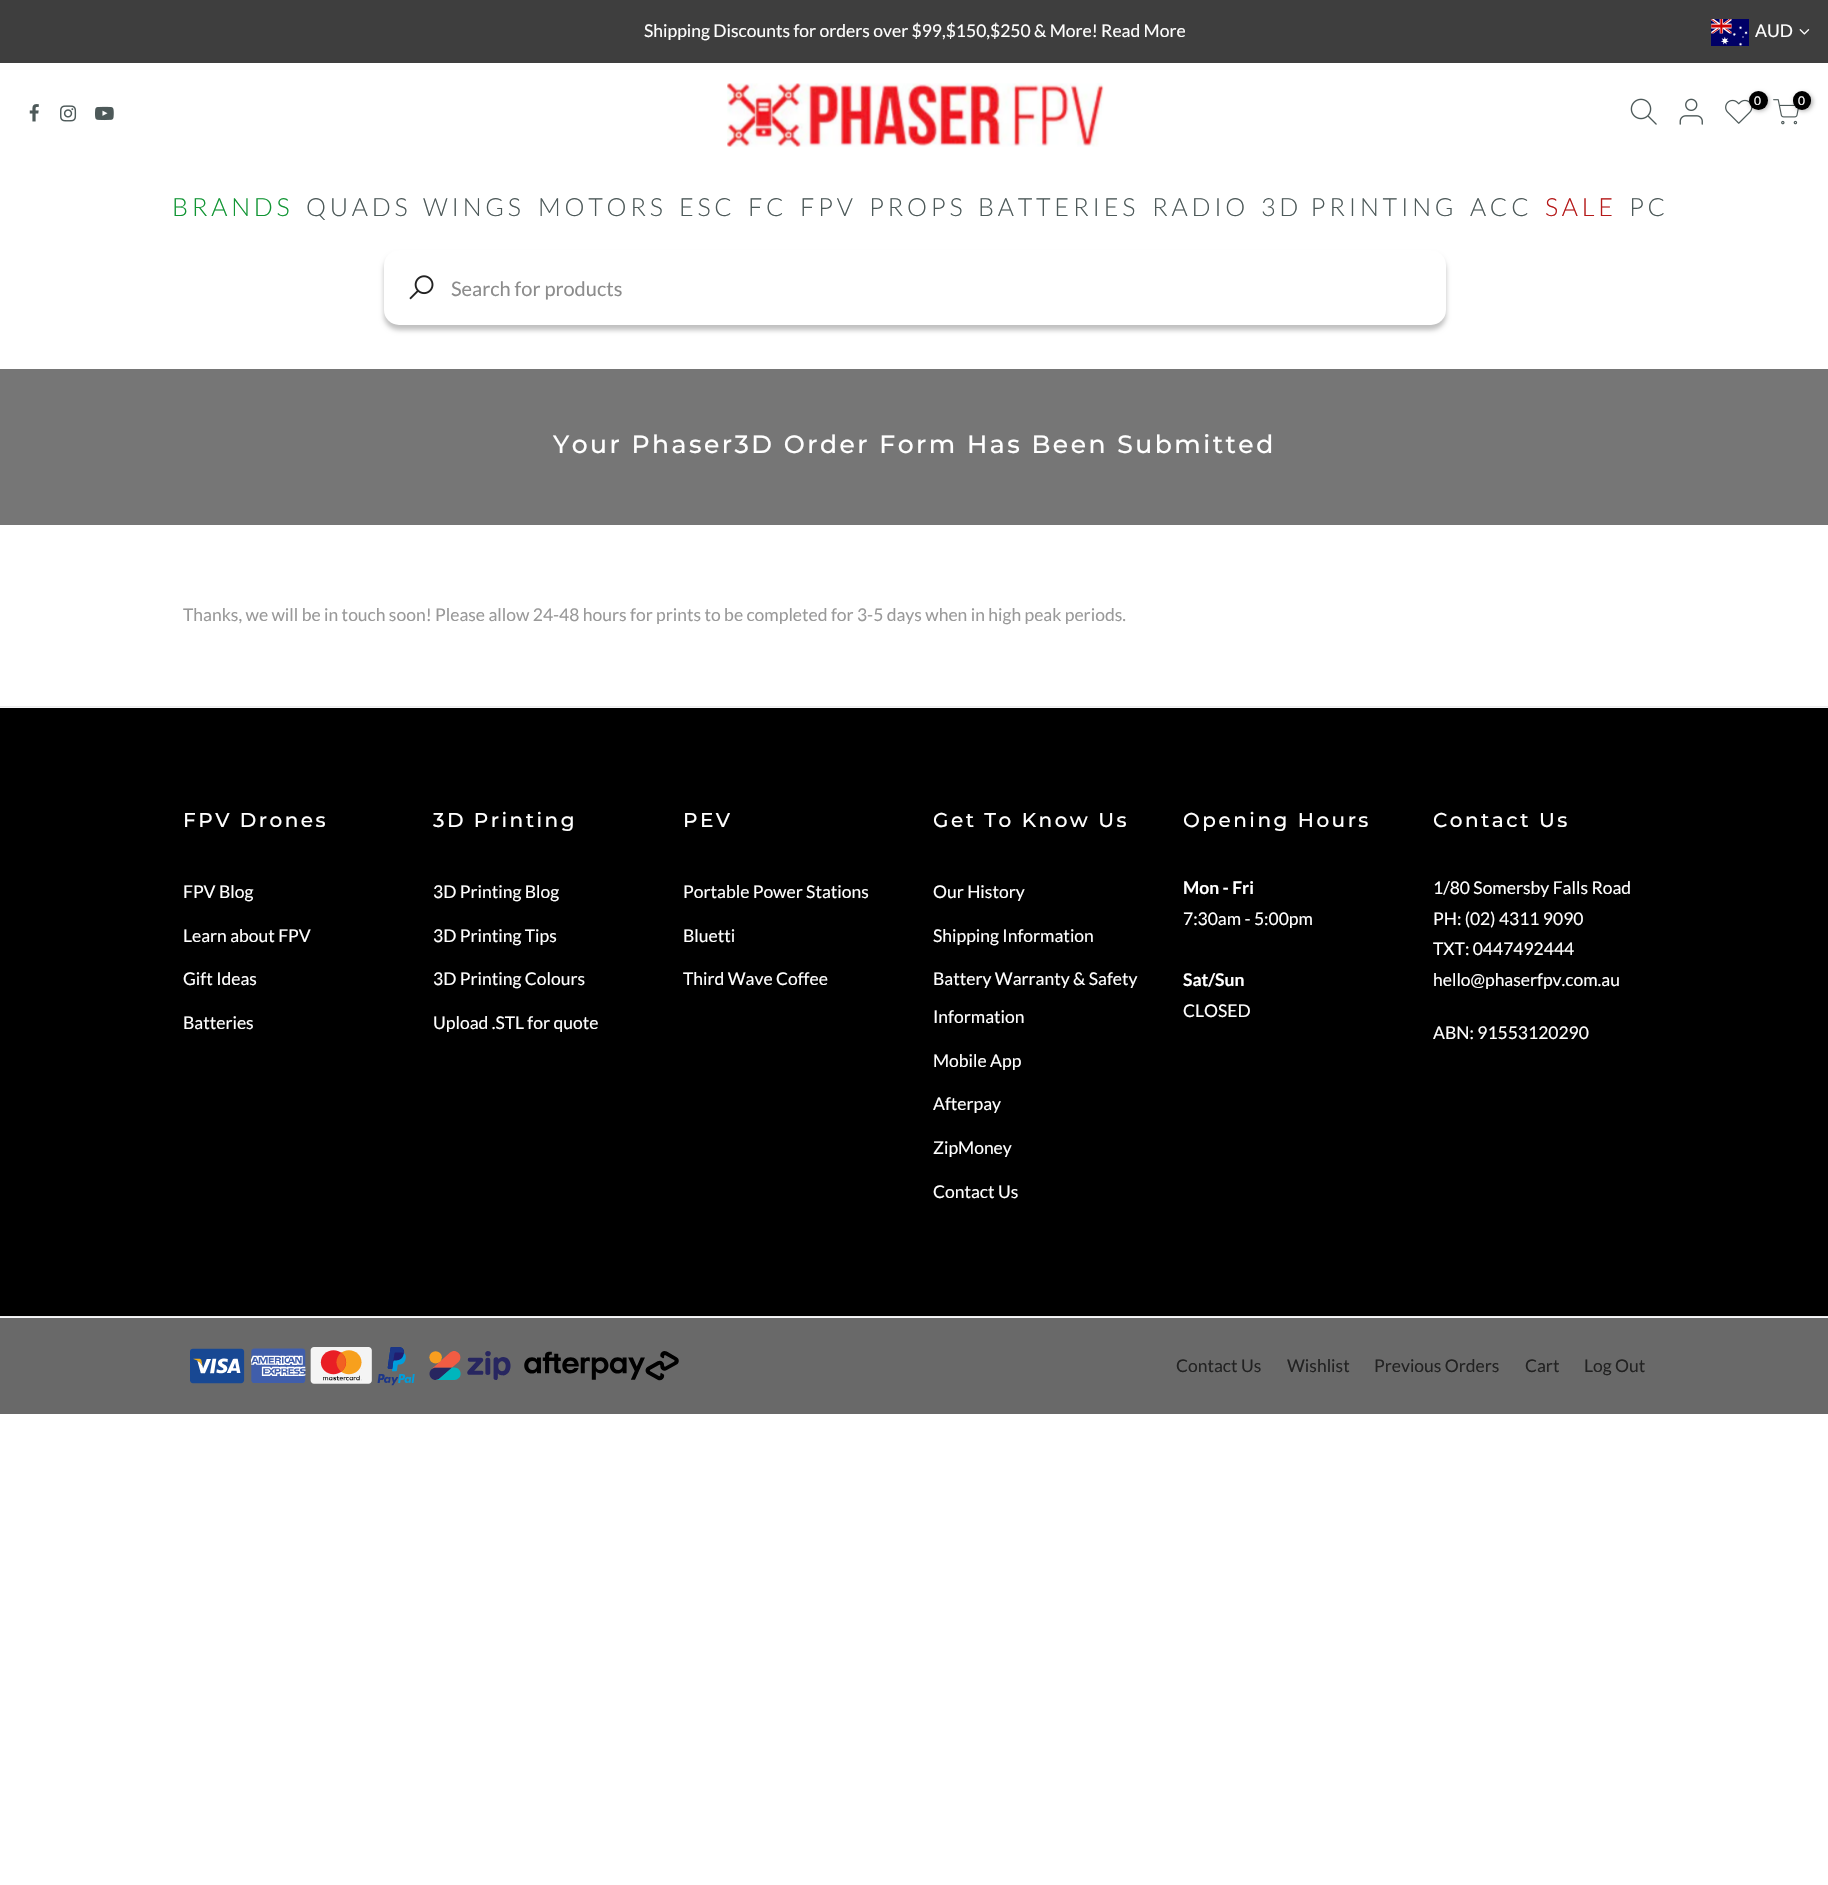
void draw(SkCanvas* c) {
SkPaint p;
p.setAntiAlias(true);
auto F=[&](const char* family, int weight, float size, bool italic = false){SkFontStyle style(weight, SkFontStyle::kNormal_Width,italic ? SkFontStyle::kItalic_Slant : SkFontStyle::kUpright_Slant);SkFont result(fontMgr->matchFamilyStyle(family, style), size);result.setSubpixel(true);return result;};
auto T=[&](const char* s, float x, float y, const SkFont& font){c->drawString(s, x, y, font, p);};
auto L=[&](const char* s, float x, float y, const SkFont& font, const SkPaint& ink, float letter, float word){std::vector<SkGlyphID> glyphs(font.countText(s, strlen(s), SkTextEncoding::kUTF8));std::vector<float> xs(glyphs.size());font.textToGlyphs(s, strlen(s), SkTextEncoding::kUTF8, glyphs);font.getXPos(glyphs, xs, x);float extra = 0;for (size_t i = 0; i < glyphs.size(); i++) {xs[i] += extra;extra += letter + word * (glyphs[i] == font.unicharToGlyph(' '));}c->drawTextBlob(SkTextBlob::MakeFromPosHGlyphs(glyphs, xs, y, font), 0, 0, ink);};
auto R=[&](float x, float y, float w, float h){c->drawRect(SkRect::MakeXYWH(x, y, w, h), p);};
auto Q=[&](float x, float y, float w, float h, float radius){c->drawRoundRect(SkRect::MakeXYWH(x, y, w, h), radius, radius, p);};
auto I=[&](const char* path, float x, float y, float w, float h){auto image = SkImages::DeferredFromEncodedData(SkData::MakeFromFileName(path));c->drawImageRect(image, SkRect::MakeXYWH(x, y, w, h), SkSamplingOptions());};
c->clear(0xffffffff);
p.setColor(0xff3e3e3e);
R(0,0,1828,63);
auto f1 = F("Lato",400,17.5);
p.setColor(0xffffffff);
T("Shipping Discounts for orders over $99,$150,$250 & More! Read More",644,37,f1);
I("1.png",1711,19,38,27);
T("AUD",1755,37,f1);
I("2.png",1799,29,11,6);
I("3.png",727,83,377,64);
I("4.png",1630,98,27,27);
I("5.png",1679,98,24,27);
I("6.png",1725,99,28,25);
I("7.png",1773,99,26,26);
p.setColor(0x4d000000);
p.setMaskFilter(SkMaskFilter::MakeBlur(kNormal_SkBlurStyle, 2));
c->drawRoundRect(SkRect::MakeXYWH(1750,93,19,18),9,9,p);
p.setMaskFilter(nullptr);
p.setColor(0xff000000);
c->drawCircle(1758.5,100.5,9.5,p);
auto f2 = F("Lato",400,12);
p.setColor(0xffffffff);
T("0",1754,105,f2);
p.setColor(0x4d000000);
p.setMaskFilter(SkMaskFilter::MakeBlur(kNormal_SkBlurStyle, 2));
c->drawRoundRect(SkRect::MakeXYWH(1794,93,19,18),9,9,p);
p.setMaskFilter(nullptr);
p.setColor(0xff000000);
Q(1793,91,18,19,9);
p.setColor(0xffffffff);
T("0",1798,105,f2);
I("8.png",29,104,10,18);
I("9.png",60,105,17,17);
I("10.png",95,106,19,15);
auto f3 = F("Lato",300,25);
p.setColor(0xff109533);
L("BRANDS",172,216,f3,p,3.75,0);
p.setColor(0xff4d5959);
L("QUADS",306,216,f3,p,3.75,0);
L("WINGS",423,216,f3,p,3.75,0);
L("MOTORS",538,216,f3,p,3.75,0);
L("ESC",679,216,f3,p,3.75,0);
L("FC",748,216,f3,p,3.75,0);
L("FPV",800,216,f3,p,3.75,0);
L("PROPS",869,216,f3,p,3.75,0);
L("BATTERIES",978,216,f3,p,3.75,0);
L("RADIO",1152,216,f3,p,3.75,0);
L("3D PRINTING",1261,216,f3,p,3.75,0);
L("ACC",1470,216,f3,p,3.75,0);
p.setColor(0xffb51919);
L("SALE",1545,216,f3,p,3.75,0);
p.setColor(0xff4d5959);
L("PC",1629,216,f3,p,3.75,0);
p.setColor(0x40000000);
p.setMaskFilter(SkMaskFilter::MakeBlur(kNormal_SkBlurStyle, 2.5));
c->drawRoundRect(SkRect::MakeXYWH(384,255,1062,75),15,15,p);
p.setMaskFilter(nullptr);
p.setColor(0xffffffff);
Q(384,250,1062,75,15);
I("11.png",409,275,25,25);
auto f4 = F("Lato",400,20);
p.setColor(0xff8c8c8c);
T("Search for products",451,296,f4);
p.setColor(0xff767676);
R(0,369,1828,156);
auto f5 = F("Montserrat",500,25);
p.setColor(0xffffffff);
L("Your Phaser3D Order Form Has Been Submitted",553,453,f5,p,2.5,0);
p.setColor(0xff999999);
T("Thanks, we will be in touch soon! Please allow 24-48 hours for prints to be completed for 3-5 days when in high peak periods.",183,621,f1);
p.setColor(0xfff6f6f8);
R(0,707,1828,611);
p.setColor(0xff000000);
R(0,708,1828,608);
p.setColor(0xffededed);
R(0,706,1828,1);
R(0,1316,1828,1);
auto f6 = F("Montserrat",500,20);
p.setColor(0xffffffff);
L("FPV Drones",183,827,f6,p,2.5,0);
T("FPV Blog",183,898,f1);
T("Learn about FPV",183,942,f1);
T("Gift Ideas",183,985,f1);
T("Batteries",183,1029,f1);
L("3D Printing",433,827,f6,p,2.5,0);
T("3D Printing Blog",433,898,f1);
T("3D Printing Tips",433,942,f1);
T("3D Printing Colours",433,985,f1);
T("Upload .STL for quote",433,1029,f1);
L("PEV",683,827,f6,p,2.5,0);
T("Portable Power Stations",683,898,f1);
T("Bluetti",683,942,f1);
T("Third Wave Coffee",683,985,f1);
L("Get To Know Us",933,827,f6,p,2.5,0);
T("Our History",933,898,f1);
T("Shipping Information",933,942,f1);
T("Battery Warranty & Safety",933,985,f1);
T("Information",933,1023,f1);
T("Mobile App",933,1067,f1);
T("Afterpay",933,1110,f1);
T("ZipMoney",933,1154,f1);
T("Contact Us",933,1198,f1);
L("Opening Hours",1183,827,f6,p,2.5,0);
auto f7 = F("Lato",700,17.5);
T("Mon - Fri",1183,894,f7);
T("7:30am - 5:00pm",1183,925,f1);
T("Sat/Sun",1183,986,f7);
T("CLOSED",1183,1017,f1);
L("Contact Us",1433,827,f6,p,2.5,0);
T("1/80 Somersby Falls Road",1433,894,f1);
T("PH: (02) 4311 9090",1433,925,f1);
T("TXT: 0447492444",1433,955,f1);
T("hello@phaserfpv.com.au",1433,986,f1);
T("ABN: 91553120290",1433,1039,f1);
p.setColor(0xff696969);
R(0,1318,1828,96);
I("12.png",190,1347,489,39);
p.setColor(0xff222222);
T("Contact Us",1176,1372,f1);
T("Wishlist",1287,1372,f1);
T("Previous Orders",1374,1372,f1);
T("Cart",1525,1372,f1);
T("Log Out",1584,1372,f1);
}
